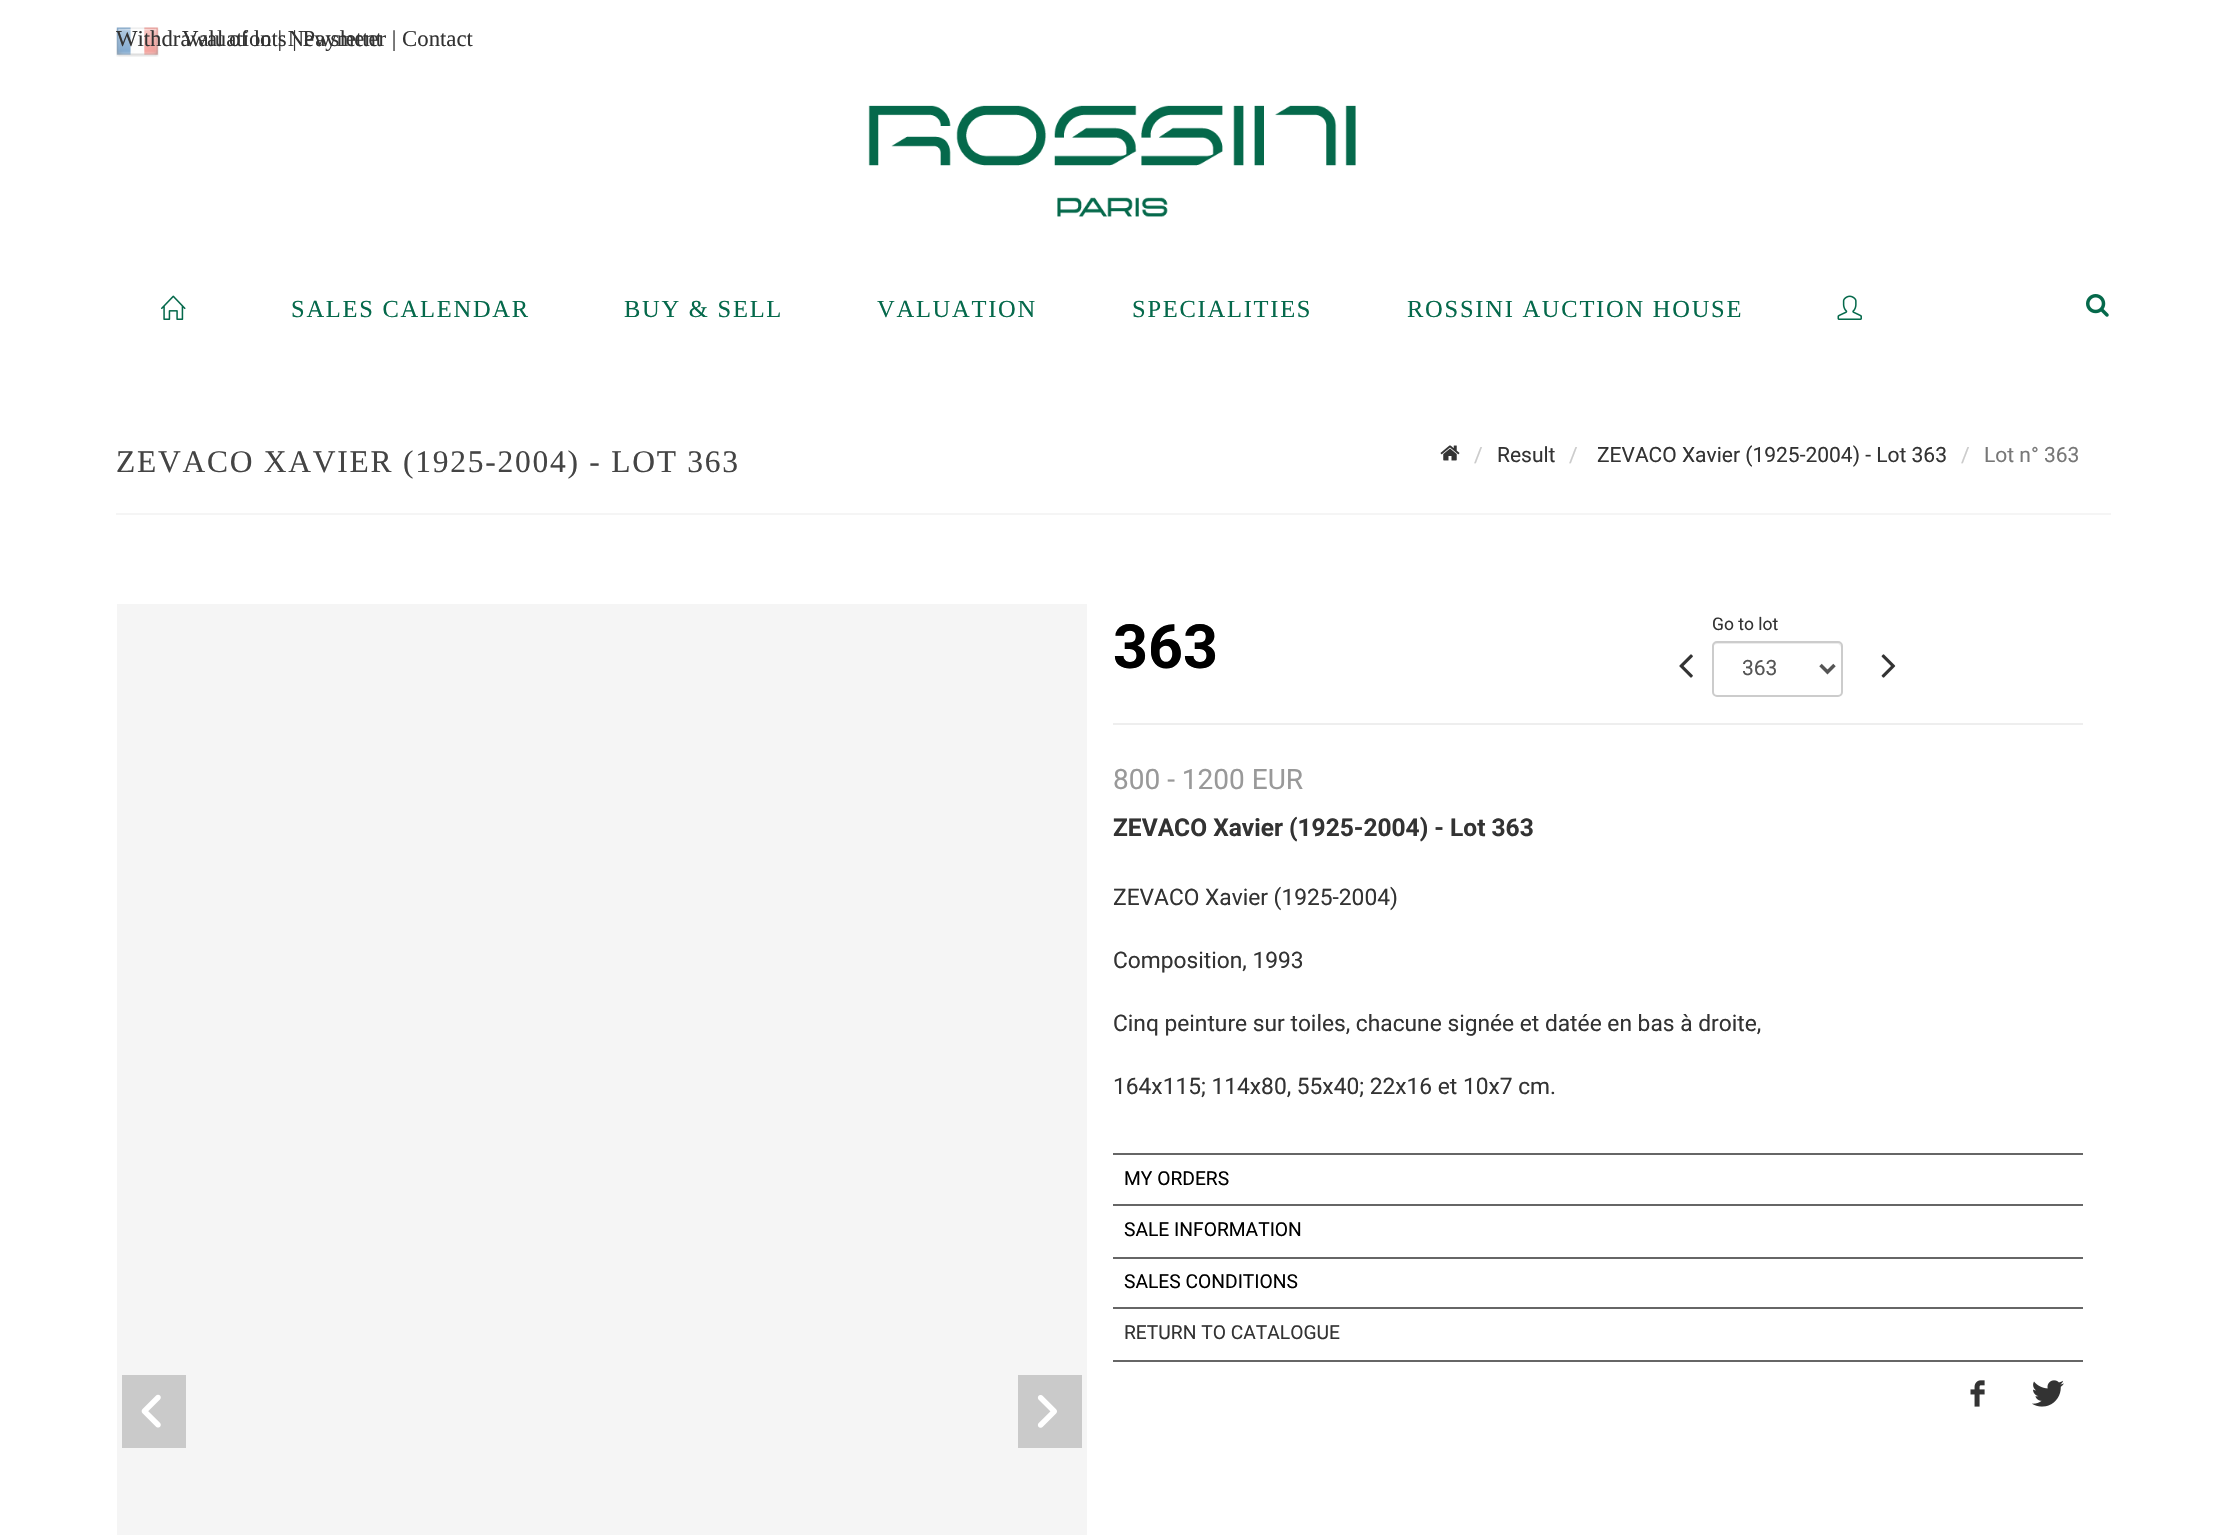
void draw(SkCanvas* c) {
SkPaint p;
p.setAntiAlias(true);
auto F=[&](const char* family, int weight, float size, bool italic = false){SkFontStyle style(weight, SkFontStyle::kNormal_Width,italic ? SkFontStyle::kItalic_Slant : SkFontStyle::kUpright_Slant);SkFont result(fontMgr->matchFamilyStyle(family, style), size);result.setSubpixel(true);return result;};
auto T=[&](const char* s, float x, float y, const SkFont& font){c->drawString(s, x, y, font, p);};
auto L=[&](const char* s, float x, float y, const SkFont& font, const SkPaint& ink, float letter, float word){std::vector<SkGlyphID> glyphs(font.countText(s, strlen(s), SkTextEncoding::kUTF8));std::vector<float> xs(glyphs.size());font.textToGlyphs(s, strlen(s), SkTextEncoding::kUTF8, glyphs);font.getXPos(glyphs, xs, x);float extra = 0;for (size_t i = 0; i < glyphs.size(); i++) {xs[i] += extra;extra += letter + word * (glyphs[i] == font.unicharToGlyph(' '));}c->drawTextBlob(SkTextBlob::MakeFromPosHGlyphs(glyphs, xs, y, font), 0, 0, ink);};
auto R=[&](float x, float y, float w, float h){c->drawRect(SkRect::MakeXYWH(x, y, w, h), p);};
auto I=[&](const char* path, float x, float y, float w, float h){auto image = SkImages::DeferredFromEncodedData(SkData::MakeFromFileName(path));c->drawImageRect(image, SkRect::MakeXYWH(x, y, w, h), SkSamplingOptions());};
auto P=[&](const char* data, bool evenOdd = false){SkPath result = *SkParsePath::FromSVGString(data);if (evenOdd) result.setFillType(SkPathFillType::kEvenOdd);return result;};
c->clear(0xffffffff);
I("5.png",116,27,43,30);
auto f1 = F("Liberation Serif",400,22.75);
p.setColor(0xff333333);
T("Valuation | Newsletter | Contact",182,46,f1);
T("Withdrawal of lots | Payment",116,46,f1);
I("1.png",868,105,488,112);
I("2.png",161,295,25,25);
auto f2 = F("Liberation Serif",400,24.5);
p.setColor(0xff05694b);
L("SALES CALENDAR",291,317,f2,p,1.75,0);
L("BUY & SELL",624,317,f2,p,1.75,0);
L("VALUATION",877,317,f2,p,1.75,0);
L("SPECIALITIES",1132,317,f2,p,1.75,0);
L("ROSSINI AUCTION HOUSE",1407,317,f2,p,1.75,0);
I("3.png",1837,295,25,25);
I("4.png",2086,294,23,23);
p.setColor(0xfff5f5f5);
R(116,513,1995,2);
auto f3 = F("Liberation Serif",400,31.5);
p.setColor(0xff444444);
L("ZEVACO XAVIER (1925-2004) - LOT 363",116,472,f3,p,1.75,0);
I("6.png",1440,445,20,16);
auto f4 = F("Roboto",400,21);
p.setColor(0xffcccccc);
T("/",1474,462,f4);
p.setColor(0xff333333);
T("Result",1497,462,f4);
p.setColor(0xffcccccc);
T("/",1569,462,f4);
p.setColor(0xff333333);
T("ZEVACO Xavier (1925-2004) - Lot 363",1597,462,f4);
p.setColor(0xffcccccc);
T("/",1961,462,f4);
p.setColor(0xff777777);
T("Lot n° 363",1984,462,f4);
p.setColor(0xfff5f5f5);
R(117,604,970,931);
p.setColor(0xffcacaca);
R(122,1375,64,73);
I("7.png",141,1394,20,34);
R(1018,1375,64,73);
I("8.png",1037,1395,20,33);
auto f5 = F("Roboto",700,61);
p.setColor(0xff000000);
T("363",1113,668,f5);
I("9.png",1679,654,14,24);
auto f6 = F("Roboto",400,17.5);
p.setColor(0xff333333);
T("Go to lot",1712,630,f6);
p.setColor(0xffececec);
c->drawPath(P("M1717 644h121c1 0 3 2 3 4v-2c0-2-2-4-4-4h-120c-2 0-4 2-4 4v2c0-2 2-4 4-4z"),p);
p.setStroke(true);
p.setStrokeWidth(2);
p.setColor(0xffcccccc);
c->drawRoundRect(SkRect::MakeXYWH(1713,642,129,54),4,4,p);
p.setStrokeWidth(3.5);
p.setColor(0xff555555);
c->drawPath(P("M1820.5 665l7 7l7-7"),p);
p.setStroke(false);
T("363",1742,675,f4);
I("10.png",1881,654,15,24);
p.setColor(0xffeeeeee);
R(1113,723,970,2);
auto f7 = F("Roboto",400,28);
p.setColor(0xff999999);
T("800 - 1200 EUR",1113,789,f7);
auto f8 = F("Roboto",700,24.5);
p.setColor(0xff333333);
T("ZEVACO Xavier (1925-2004) - Lot 363",1113,836,f8);
auto f9 = F("Roboto",400,22.75);
T("ZEVACO Xavier (1925-2004)",1113,905,f9);
T("Composition, 1993",1113,968,f9);
T("Cinq peinture sur toiles, chacune signée et datée en bas à droite,",1113,1031,f9);
T("164x115; 114x80, 55x40; 22x16 et 10x7 cm.",1113,1094,f9);
p.setColor(0xff666666);
R(1113,1153,970,2);
R(1113,1204,970,2);
auto f10 = F("Roboto",400,19.25);
p.setColor(0xff000000);
T("MY ORDERS",1124,1185,f10);
p.setColor(0xff666666);
R(1113,1257,970,2);
p.setColor(0xff000000);
T("SALE INFORMATION",1124,1236,f10);
p.setColor(0xff666666);
R(1113,1307,970,2);
p.setColor(0xff000000);
T("SALES CONDITIONS",1124,1288,f10);
p.setColor(0xff666666);
R(1113,1360,970,2);
p.setColor(0xff333333);
T("RETURN TO CATALOGUE",1124,1339,f10);
I("11.png",1970,1380,15,27);
I("12.png",2032,1380,32,27);
}
